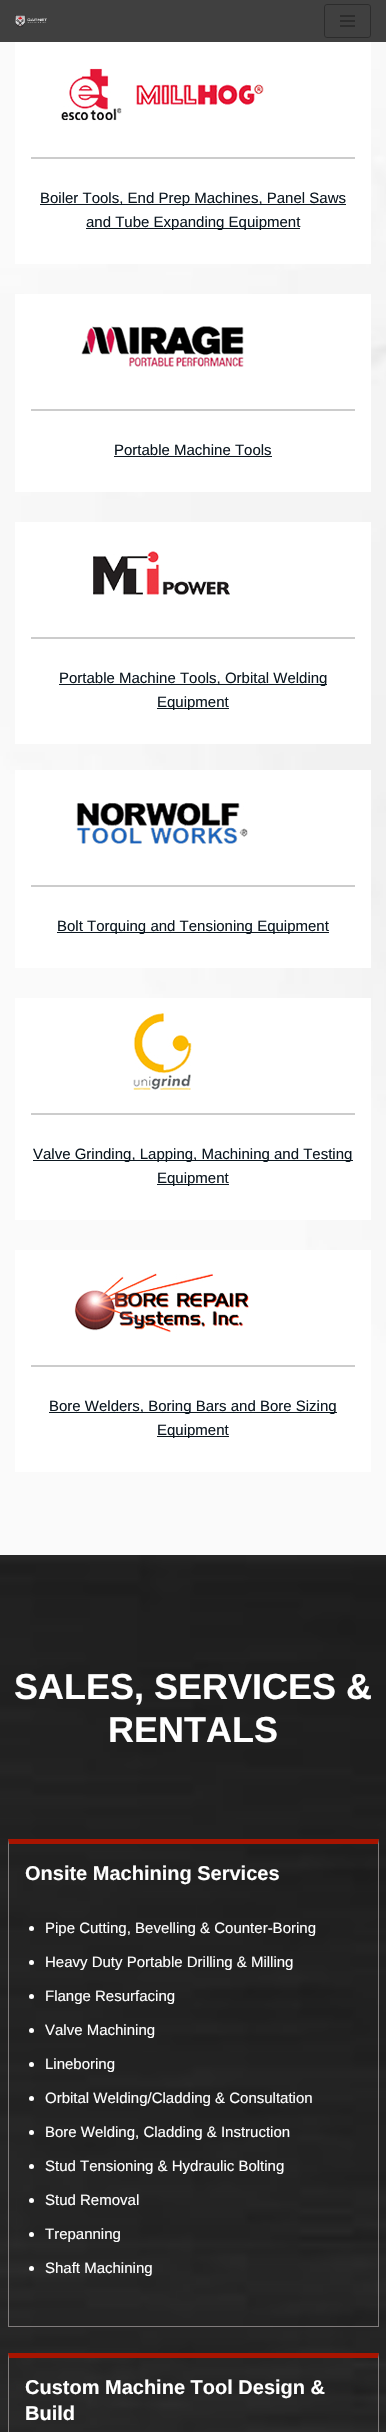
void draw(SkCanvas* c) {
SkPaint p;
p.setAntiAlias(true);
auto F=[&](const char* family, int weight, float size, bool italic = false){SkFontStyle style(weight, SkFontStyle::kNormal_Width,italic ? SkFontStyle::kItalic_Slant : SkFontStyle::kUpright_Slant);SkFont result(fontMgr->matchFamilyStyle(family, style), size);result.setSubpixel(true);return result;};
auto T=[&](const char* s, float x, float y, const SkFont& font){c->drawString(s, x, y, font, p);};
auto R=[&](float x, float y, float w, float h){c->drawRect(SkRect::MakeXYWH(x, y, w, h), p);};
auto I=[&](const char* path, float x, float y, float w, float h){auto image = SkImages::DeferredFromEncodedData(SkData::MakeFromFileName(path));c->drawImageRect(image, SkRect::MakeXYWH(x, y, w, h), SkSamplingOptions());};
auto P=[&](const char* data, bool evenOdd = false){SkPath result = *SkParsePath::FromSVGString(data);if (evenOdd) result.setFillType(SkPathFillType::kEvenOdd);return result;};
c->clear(0xff404040);
I("1.png",15,15,32,12);
p.setStroke(true);
p.setStrokeWidth(1);
p.setColor(0xff2c2c2c);
c->drawRoundRect(SkRect::MakeXYWH(324.5,4.5,46,33),2.5,2.5,p);
p.setStroke(false);
R(340,15,15,2);
R(340,20,15,2);
R(340,25,15,2);
I("2.png",0,42,386,1513);
p.setColor(0xffffffff);
R(15,42,356,222);
I("3.png",61,68,203,53);
p.setColor(0xffcccccc);
R(31,157,324,2);
p.setColor(0xff0d1821);
R(40,204,306,1);
auto f1 = F("Liberation Sans",400,15);
T("Boiler Tools, End Prep Machines, Panel Saws",40,203,f1);
R(86,228,214,1);
T("and Tube Expanding Equipment",86,227,f1);
p.setColor(0xffffffff);
R(15,294,356,198);
I("4.png",81,326,163,41);
p.setColor(0xffcccccc);
R(31,409,324,2);
p.setColor(0xff0d1821);
T("Portable Machine Tools",114,455,f1);
R(114,456,158,1);
p.setColor(0xffffffff);
R(15,522,356,222);
I("5.png",93,551,137,44);
p.setColor(0xffcccccc);
R(31,637,324,2);
p.setColor(0xff0d1821);
R(59,684,268,1);
T("Portable Machine Tools, Orbital Welding",59,683,f1);
R(157,708,72,1);
T("Equipment",157,707,f1);
p.setColor(0xffffffff);
R(15,770,356,198);
I("6.png",76,802,172,42);
p.setColor(0xffcccccc);
R(31,885,324,2);
p.setColor(0xff0d1821);
R(57,932,272,1);
T("Bolt Torquing and Tensioning Equipment",57,931,f1);
p.setColor(0xffffffff);
R(15,998,356,222);
I("7.png",133,1013,59,77);
p.setColor(0xffcccccc);
R(31,1113,324,2);
p.setColor(0xff0d1821);
R(33,1160,320,1);
T("Valve Grinding, Lapping, Machining and Testing",33,1159,f1);
R(157,1184,72,1);
T("Equipment",157,1183,f1);
p.setColor(0xffffffff);
R(15,1250,356,222);
I("8.png",74,1273,175,60);
p.setColor(0xffcccccc);
R(31,1365,324,2);
p.setColor(0xff0d1821);
R(49,1412,288,1);
T("Bore Welders, Boring Bars and Bore Sizing",49,1411,f1);
R(157,1436,72,1);
T("Equipment",157,1435,f1);
I("9.png",0,1555,386,877);
auto f2 = F("Liberation Sans",700,36);
p.setColor(0xffffffff);
T("SALES, SERVICES &",14,1699,f2);
T("RENTALS",108,1742,f2);
p.setColor(0xffa81400);
c->drawPath(P("M8 1839h371l-1 5h-369z"),p);
p.setColor(0xff807c7c);
c->drawPath(P("M379 1839v488l-1-1v-482z"),p);
R(8,2326,371,1);
c->drawPath(P("M8 2327v-488l1 5v482z"),p);
auto f3 = F("Liberation Sans",700,20);
p.setColor(0xffffffff);
T("Onsite Machining Services",25,1880,f3);
c->drawCircle(31.5,1928.5,2.5,p);
T("Pipe Cutting, Bevelling & Counter-Boring",45,1933,f1);
c->drawCircle(31.5,1962.5,2.5,p);
T("Heavy Duty Portable Drilling & Milling",45,1967,f1);
c->drawCircle(31.5,1996.5,2.5,p);
T("Flange Resurfacing",45,2001,f1);
c->drawCircle(31.5,2030.5,2.5,p);
T("Valve Machining",45,2035,f1);
c->drawCircle(31.5,2064.5,2.5,p);
T("Lineboring",45,2069,f1);
c->drawCircle(31.5,2098.5,2.5,p);
T("Orbital Welding/Cladding & Consultation",45,2103,f1);
c->drawCircle(31.5,2132.5,2.5,p);
T("Bore Welding, Cladding & Instruction",45,2137,f1);
c->drawCircle(31.5,2166.5,2.5,p);
T("Stud Tensioning & Hydraulic Bolting",45,2171,f1);
c->drawCircle(31.5,2200.5,2.5,p);
T("Stud Removal",45,2205,f1);
c->drawCircle(31.5,2234.5,2.5,p);
T("Trepanning",45,2239,f1);
c->drawCircle(31.5,2268.5,2.5,p);
T("Shaft Machining",45,2273,f1);
p.setColor(0xffa81400);
c->drawPath(P("M8 2353h371l-1 5h-369z"),p);
p.setColor(0xff807c7c);
c->drawPath(P("M379 2353v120l-1-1v-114z"),p);
c->drawPath(P("M8 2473v-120l1 5v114z"),p);
p.setColor(0xffffffff);
T("Custom Machine Tool Design &",25,2394,f3);
T("Build",25,2420,f3);
}
